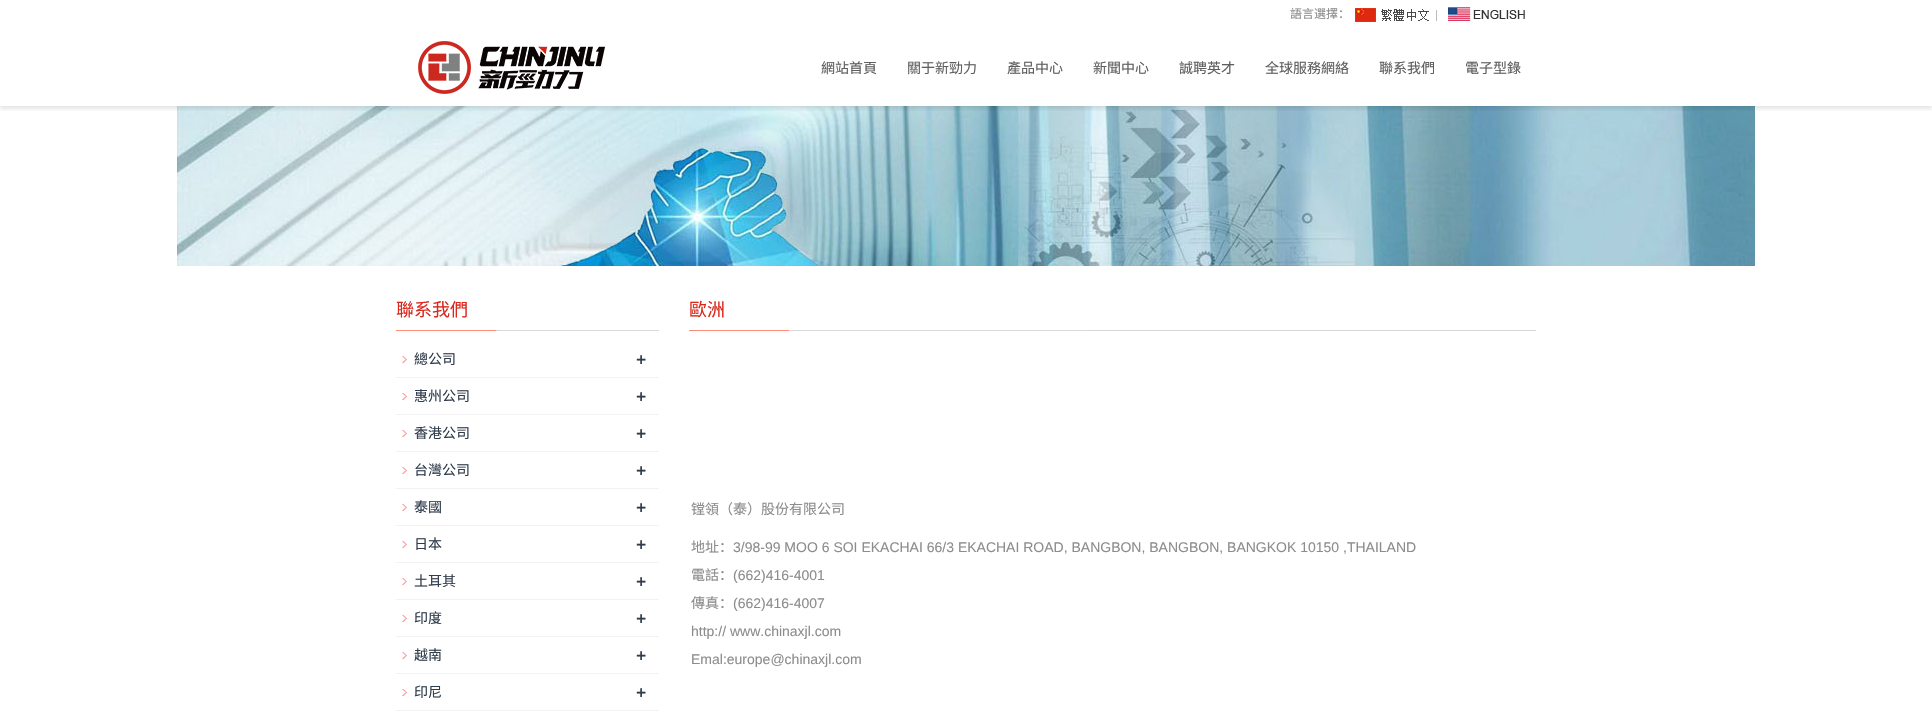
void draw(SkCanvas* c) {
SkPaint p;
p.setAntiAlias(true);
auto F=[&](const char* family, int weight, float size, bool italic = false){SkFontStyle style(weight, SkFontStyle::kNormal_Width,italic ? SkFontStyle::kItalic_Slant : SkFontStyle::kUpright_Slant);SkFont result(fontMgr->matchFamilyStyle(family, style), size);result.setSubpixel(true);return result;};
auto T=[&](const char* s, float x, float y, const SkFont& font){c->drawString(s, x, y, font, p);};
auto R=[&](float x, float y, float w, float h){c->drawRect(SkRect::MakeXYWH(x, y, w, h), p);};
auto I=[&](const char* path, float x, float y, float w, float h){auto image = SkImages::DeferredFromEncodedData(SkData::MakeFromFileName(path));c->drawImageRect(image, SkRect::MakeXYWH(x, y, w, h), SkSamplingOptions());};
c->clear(0xffffffff);
auto f1 = F("Noto Sans CJK SC",400,12);
p.setColor(0xff8b8c8b);
T("語言選擇：",1290,18,f1);
I("1.png",1355,8,74,14);
p.setColor(0xffbbbbbb);
R(1436,10,1,11);
I("2.png",1448,7,77,14);
I("4.png",177,106,1578,160);
c->save();
c->clipRect(SkRect::MakeXYWH(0,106,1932,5));
p.setColor(0x1a000000);
p.setMaskFilter(SkMaskFilter::MakeBlur(kNormal_SkBlurStyle, 2));
c->drawRect(SkRect::MakeXYWH(0,33,1932,76),p);
p.setMaskFilter(nullptr);
c->restore();
I("3.png",418,41,187,53);
auto f2 = F("Noto Sans CJK SC",400,14);
p.setColor(0xff5e5e5e);
T("網站首頁",821,73,f2);
T("關于新勁力",907,73,f2);
T("產品中心",1007,73,f2);
T("新聞中心",1093,73,f2);
T("誠聘英才",1179,73,f2);
T("全球服務網絡",1265,73,f2);
T("聯系我們",1379,73,f2);
T("電子型錄",1465,73,f2);
I("5.png",396,329,263,2);
auto f3 = F("Noto Sans CJK SC",400,18);
p.setColor(0xffd9271c);
T("聯系我們",396,316,f3);
I("6.png",402,356,5,7);
p.setColor(0xfff2f2f2);
R(396,377,263,1);
p.setColor(0xff303c4b);
T("總公司",414,364,f2);
auto f4 = F("Open Sans",600,18);
T("+",636,366,f4);
I("6.png",402,393,5,7);
p.setColor(0xfff2f2f2);
R(396,414,263,1);
p.setColor(0xff303c4b);
T("惠州公司",414,401,f2);
T("+",636,403,f4);
I("6.png",402,430,5,7);
p.setColor(0xfff2f2f2);
R(396,451,263,1);
p.setColor(0xff303c4b);
T("香港公司",414,438,f2);
T("+",636,440,f4);
I("6.png",402,467,5,7);
p.setColor(0xfff2f2f2);
R(396,488,263,1);
p.setColor(0xff303c4b);
T("台灣公司",414,475,f2);
T("+",636,477,f4);
I("6.png",402,504,5,7);
p.setColor(0xfff2f2f2);
R(396,525,263,1);
p.setColor(0xff303c4b);
T("泰國",414,512,f2);
T("+",636,514,f4);
I("6.png",402,541,5,7);
p.setColor(0xfff2f2f2);
R(396,562,263,1);
p.setColor(0xff303c4b);
T("日本",414,549,f2);
T("+",636,551,f4);
I("6.png",402,578,5,7);
p.setColor(0xfff2f2f2);
R(396,599,263,1);
p.setColor(0xff303c4b);
T("土耳其",414,586,f2);
T("+",636,588,f4);
I("6.png",402,615,5,7);
p.setColor(0xfff2f2f2);
R(396,636,263,1);
p.setColor(0xff303c4b);
T("印度",414,623,f2);
T("+",636,625,f4);
I("6.png",402,652,5,7);
p.setColor(0xfff2f2f2);
R(396,673,263,1);
p.setColor(0xff303c4b);
T("越南",414,660,f2);
T("+",636,662,f4);
I("6.png",402,689,5,7);
p.setColor(0xfff2f2f2);
R(396,710,263,1);
p.setColor(0xff303c4b);
T("印尼",414,697,f2);
T("+",636,699,f4);
I("7.png",689,329,847,2);
p.setColor(0xffd9271c);
T("歐洲",689,316,f3);
p.setColor(0xff8b8c8b);
T("镗領（泰）股份有限公司",691,514,f2);
T("地址：",691,552,f2);
auto f5 = F("Liberation Sans",400,14);
T("3/98-99 MOO 6 SOI EKACHAI 66/3 EKACHAI ROAD, BANGBON, BANGBON, BANGKOK 10150 ,THAILAND",733,552,f5);
T("電話：",691,580,f2);
T("(662)416-4001",733,580,f5);
T("傳真：",691,608,f2);
T("(662)416-4007",733,608,f5);
T("http:// www.chinaxjl.com",691,636,f5);
T("Emal:europe@chinaxjl.com",691,664,f5);
}
